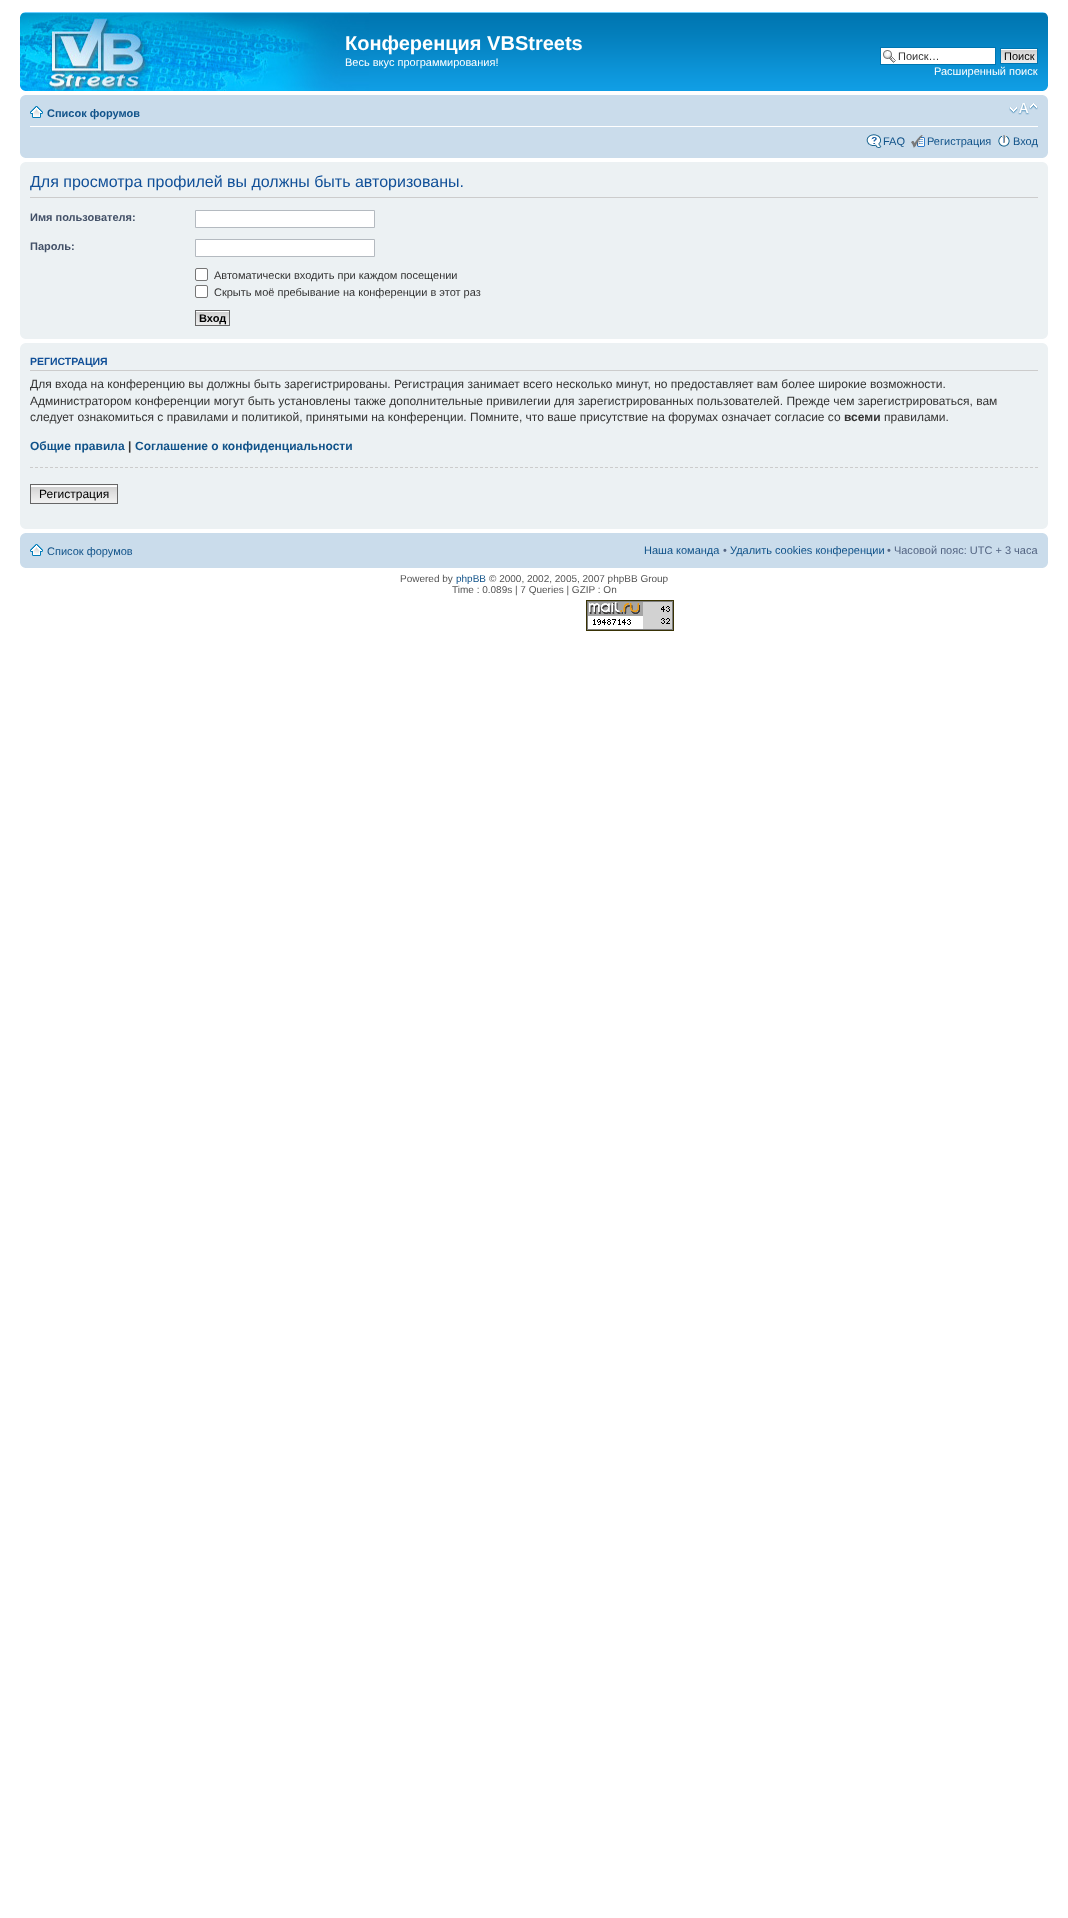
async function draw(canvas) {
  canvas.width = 1068;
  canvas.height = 1918;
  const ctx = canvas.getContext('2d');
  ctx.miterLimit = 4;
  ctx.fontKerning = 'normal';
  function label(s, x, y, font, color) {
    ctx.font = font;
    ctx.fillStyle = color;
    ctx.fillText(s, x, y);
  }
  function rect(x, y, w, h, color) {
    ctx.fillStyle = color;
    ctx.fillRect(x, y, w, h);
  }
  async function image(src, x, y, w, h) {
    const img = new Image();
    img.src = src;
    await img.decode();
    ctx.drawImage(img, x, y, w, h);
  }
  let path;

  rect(0, 0, 1068, 1918, '#fff');
  await image('assets/img1.png', 22, 12, 1026, 79);
  await image('assets/img2.png', 20, 13, 349, 78);
  await image('assets/img3.png', 20, 12, 5, 5);
  await image('assets/img4.png', 1043, 12, 5, 5);
  label('Конференция VBStreets', 345, 50, 'bold 20px Liberation Sans', '#fff');
  label('Весь вкус программирования!', 345, 66, '11px Liberation Sans', '#fff');
  rect(881, 48, 114, 16, '#fff');
  await image('assets/img5.png', 883, 50, 13, 13);
  ctx.strokeStyle = '#0075b0';
  ctx.strokeRect(880.5, 47.5, 115, 17);
  label('Поиск…', 898, 60, '11px Liberation Sans', '#333');
  await image('assets/img6.png', 1001, 49, 36, 14);
  ctx.strokeRect(1000.5, 48.5, 37, 15);
  label('Поиск', 1004, 60, '11px Liberation Sans', '#000');
  label('Расширенный поиск', 934, 75, '11px Liberation Sans', '#fff');
  await image('assets/img7.png', 20, 86, 5, 5);
  await image('assets/img8.png', 1043, 86, 5, 5);
  rect(20, 95, 1028, 63, '#cadceb');
  await image('assets/img9.png', 20, 95, 5, 5);
  await image('assets/img10.png', 1043, 95, 5, 5);
  rect(30, 126, 1008, 1, '#fff');
  await image('assets/img11.png', 30, 106, 13, 12);
  label('Список форумов', 47, 117, 'bold 11px Liberation Sans', '#105289');
  await image('assets/img12.png', 1009, 103, 29, 12);
  await image('assets/img13.png', 866, 134, 16, 14);
  label('FAQ', 883, 145, '11px Liberation Sans', '#105289');
  await image('assets/img14.png', 911, 135, 14, 13);
  label('Регистрация', 927, 145, '11px Liberation Sans', '#105289');
  await image('assets/img15.png', 998, 135, 12, 12);
  label('Вход', 1013, 145, '11px Liberation Sans', '#105289');
  await image('assets/img16.png', 20, 153, 5, 5);
  await image('assets/img17.png', 1043, 153, 5, 5);
  rect(20, 162, 1028, 177, '#ecf1f3');
  await image('assets/img18.png', 20, 162, 5, 5);
  await image('assets/img19.png', 1043, 162, 5, 5);
  rect(30, 197, 1008, 1, '#ccc');
  label('Для просмотра профилей вы должны быть авторизованы.', 30, 187, '16px Liberation Sans', '#115098');
  label('Имя пользователя:', 30, 221, 'bold 11px Liberation Sans', '#425067');
  ctx.fillStyle = '#fff';
  ctx.beginPath();
  ctx.rect(195.5, 210.5, 179, 17);
  ctx.fill();
  ctx.strokeStyle = '#b4bac0';
  ctx.stroke();
  label('Пароль:', 30, 250, 'bold 11px Liberation Sans', '#425067');
  ctx.fillStyle = '#fff';
  ctx.beginPath();
  ctx.rect(195.5, 239.5, 179, 17);
  ctx.fill();
  ctx.stroke();
  ctx.beginPath();
  ctx.roundRect(195.5, 268.5, 12, 12, 1.5);
  ctx.fill();
  ctx.strokeStyle = '#767676';
  ctx.stroke();
  label('Автоматически входить при каждом посещении', 214, 279, '11px Liberation Sans', '#333');
  ctx.fillStyle = '#fff';
  ctx.beginPath();
  ctx.roundRect(195.5, 285.5, 12, 12, 1.5);
  ctx.fill();
  ctx.stroke();
  label('Скрыть моё пребывание на конференции в этот раз', 214, 296, '11px Liberation Sans', '#333');
  await image('assets/img20.png', 196, 311, 33, 14);
  ctx.strokeStyle = '#666';
  ctx.strokeRect(195.5, 310.5, 34, 15);
  label('Вход', 199, 322, 'bold 11px Liberation Sans', '#000');
  await image('assets/img21.png', 20, 334, 5, 5);
  await image('assets/img22.png', 1043, 334, 5, 5);
  rect(20, 343, 1028, 186, '#ecf1f3');
  await image('assets/img18.png', 20, 343, 5, 5);
  await image('assets/img19.png', 1043, 343, 5, 5);
  rect(30, 370, 1008, 1, '#ccc');
  label('РЕГИСТРАЦИЯ', 30, 365, 'bold 10.5px Liberation Sans', '#115098');
  label('Для входа на конференцию вы должны быть зарегистрированы. Регистрация занимает всего несколько минут, но предоставляет вам более широкие возможности.', 30, 388, '12px Liberation Sans', '#333');
  label('Администратором конференции могут быть установлены также дополнительные привилегии для зарегистрированных пользователей. Прежде чем зарегистрироваться, вам', 30, 405, '12px Liberation Sans', '#333');
  label('следует ознакомиться с правилами и политикой, принятыми на конференции. Помните, что ваше присутствие на форумах означает согласие со', 30, 421, '12px Liberation Sans', '#333');
  label('всеми', 844, 421, 'bold 12px Liberation Sans', '#333');
  label('правилами.', 884, 421, '12px Liberation Sans', '#333');
  label('Общие правила', 30, 450, 'bold 12px Liberation Sans', '#105289');
  label('|', 128, 450, 'bold 12px Liberation Sans', '#333');
  label('Соглашение о конфиденциальности', 135, 450, 'bold 12px Liberation Sans', '#105289');
  path = new Path2D('M30 467.5H1038');
  ctx.strokeStyle = '#ccc';
  ctx.setLineDash([3, 2]);
  ctx.stroke(path);
  await image('assets/img23.png', 31, 486, 86, 17);
  rect(31, 485, 86, 1, '#fafafa');
  ctx.strokeStyle = '#666';
  ctx.setLineDash([]);
  ctx.strokeRect(30.5, 484.5, 87, 19);
  label('Регистрация', 39, 498, '12px Liberation Sans', '#000');
  await image('assets/img21.png', 20, 524, 5, 5);
  await image('assets/img22.png', 1043, 524, 5, 5);
  rect(20, 533, 1028, 35, '#cadceb');
  await image('assets/img9.png', 20, 533, 5, 5);
  await image('assets/img10.png', 1043, 533, 5, 5);
  await image('assets/img11.png', 30, 544, 13, 12);
  label('Список форумов', 47, 555, '11px Liberation Sans', '#105289');
  label('Наша команда', 644, 554, '11px Liberation Sans', '#105289');
  label('•', 723, 554, '11px Liberation Sans', '#536482');
  label('Удалить cookies конференции', 730, 554, '11px Liberation Sans', '#105289');
  label('• Часовой пояс: UTC + 3 часа', 887, 554, '11px Liberation Sans', '#536482');
  await image('assets/img16.png', 20, 563, 5, 5);
  await image('assets/img17.png', 1043, 563, 5, 5);
  label('Powered by', 400, 582, '10px Liberation Sans', '#555');
  label('phpBB', 456, 582, '10px Liberation Sans', '#105289');
  label('© 2000, 2002, 2005, 2007 phpBB Group', 489, 582, '10px Liberation Sans', '#555');
  label('Time : 0.089s | 7 Queries | GZIP : On', 452, 593, '10px Liberation Sans', '#555');
  await image('assets/img24.png', 586, 600, 88, 31);
}

draw(document.querySelector('canvas'));
